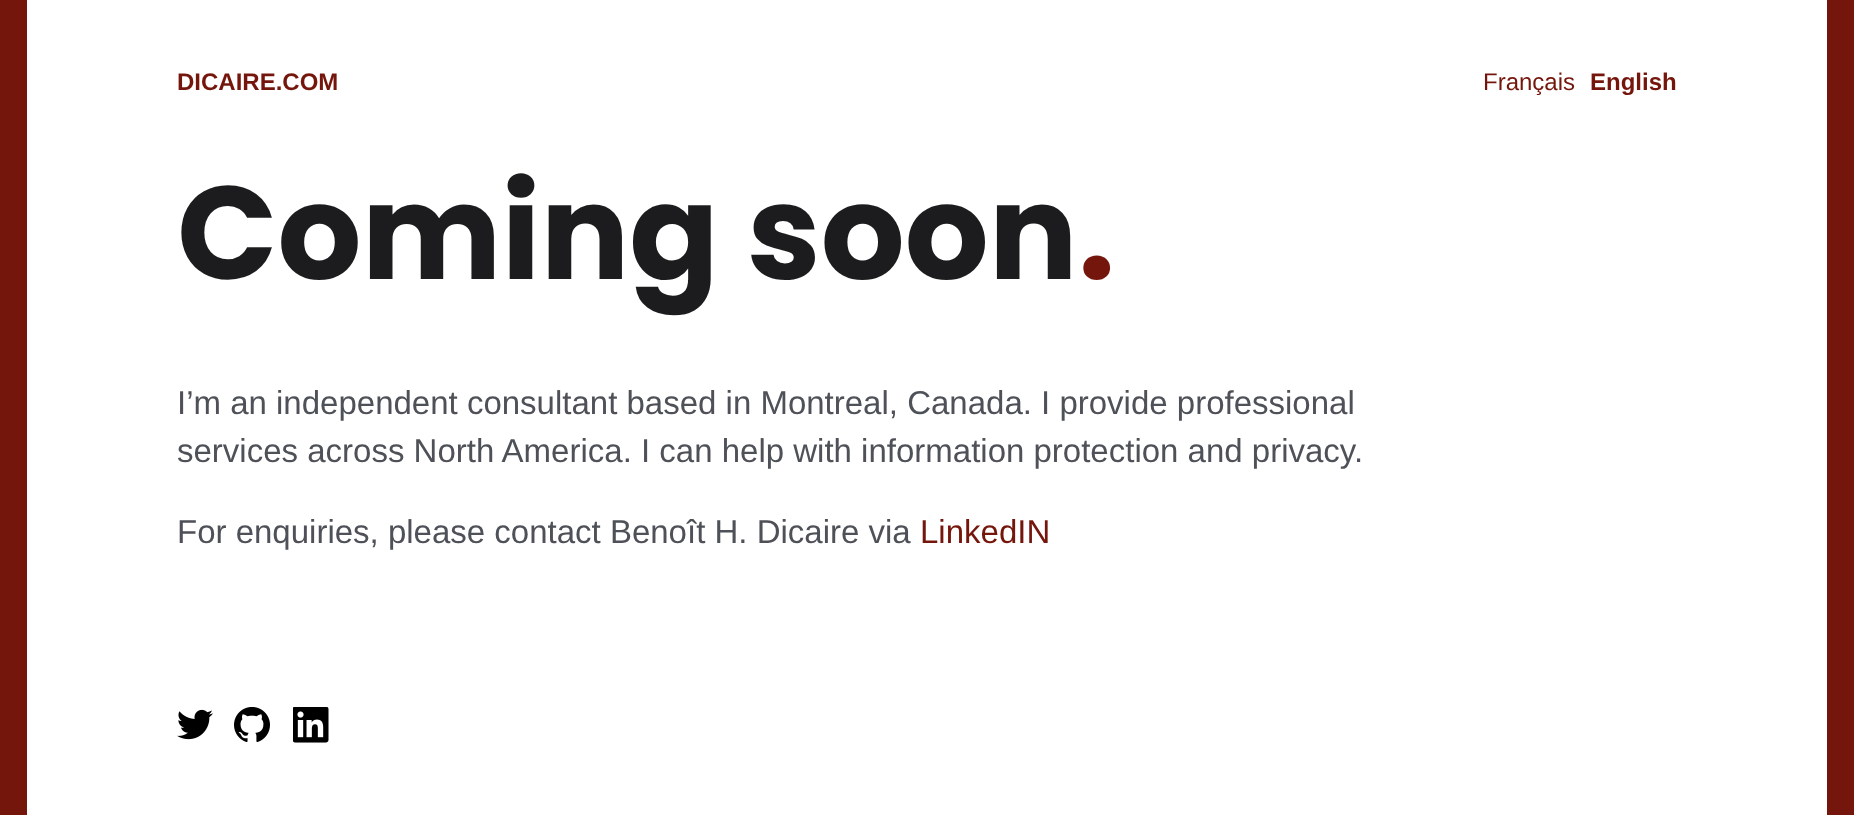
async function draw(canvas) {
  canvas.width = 1854;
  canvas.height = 815;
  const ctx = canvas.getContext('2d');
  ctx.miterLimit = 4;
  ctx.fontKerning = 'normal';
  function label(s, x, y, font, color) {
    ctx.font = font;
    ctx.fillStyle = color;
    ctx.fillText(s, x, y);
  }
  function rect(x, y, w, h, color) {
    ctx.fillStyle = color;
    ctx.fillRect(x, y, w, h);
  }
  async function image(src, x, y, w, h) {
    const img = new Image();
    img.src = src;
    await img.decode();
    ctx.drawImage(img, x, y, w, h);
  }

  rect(0, 0, 1854, 815, '#fff');
  ctx.strokeStyle = '#75160c';
  ctx.lineWidth = 27;
  ctx.strokeRect(13.5, -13.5, 1827, 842);
  label('DICAIRE.COM', 177, 90, 'bold 24px Liberation Sans', '#75160c');
  label('Français', 1483, 90, '24px Liberation Sans', '#75160c');
  label('English', 1590, 90, 'bold 24px Liberation Sans', '#75160c');
  label('Coming soon', 177, 279, 'bold 132px Poppins', '#1c1b1d');
  label('.', 1078, 279, 'bold 132px Poppins', '#75160c');
  label('I’m an independent consultant based in Montreal, Canada. I provide professional', 177, 414, '33px Liberation Sans', '#4e5157');
  label('services across North America. I can help with information protection and privacy.', 177, 462, '33px Liberation Sans', '#4e5157');
  label('For enquiries, please contact Benoît H. Dicaire via', 177, 543, '33px Liberation Sans', '#4e5157');
  label('LinkedIN', 920, 543, '33px Liberation Sans', '#75160c');
  await image('assets/img1.png', 177, 709, 36, 31);
  await image('assets/img2.png', 234, 707, 36, 35);
  await image('assets/img3.png', 293, 707, 36, 36);
}

draw(document.querySelector('canvas'));
